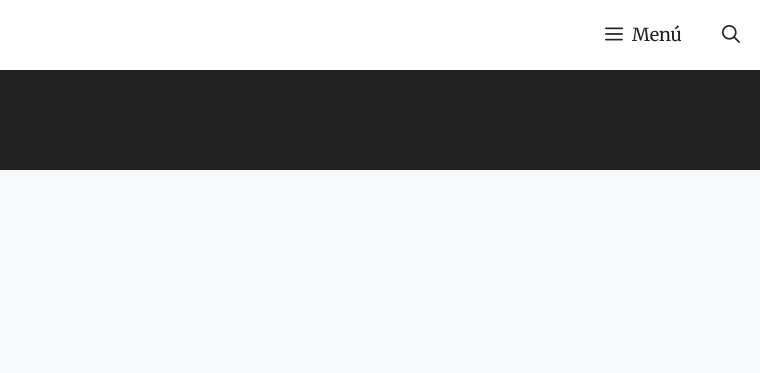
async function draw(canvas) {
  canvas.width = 760;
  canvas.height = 373;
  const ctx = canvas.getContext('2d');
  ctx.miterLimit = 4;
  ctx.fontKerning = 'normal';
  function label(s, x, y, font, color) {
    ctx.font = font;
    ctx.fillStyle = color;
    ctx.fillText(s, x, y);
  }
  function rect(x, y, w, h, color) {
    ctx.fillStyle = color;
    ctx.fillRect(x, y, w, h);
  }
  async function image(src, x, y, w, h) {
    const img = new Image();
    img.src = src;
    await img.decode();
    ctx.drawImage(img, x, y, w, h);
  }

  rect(0, 0, 760, 373, '#f7f8f9');
  rect(0, 0, 760, 70, '#fff');
  await image('assets/img1.png', 605, 27, 18, 14);
  label('Menú', 632, 41, '18px Merriweather', '#222');
  await image('assets/img2.png', 722, 25, 18, 18);
  rect(0, 70, 760, 100, '#212121');
}

draw(document.querySelector('canvas'));
